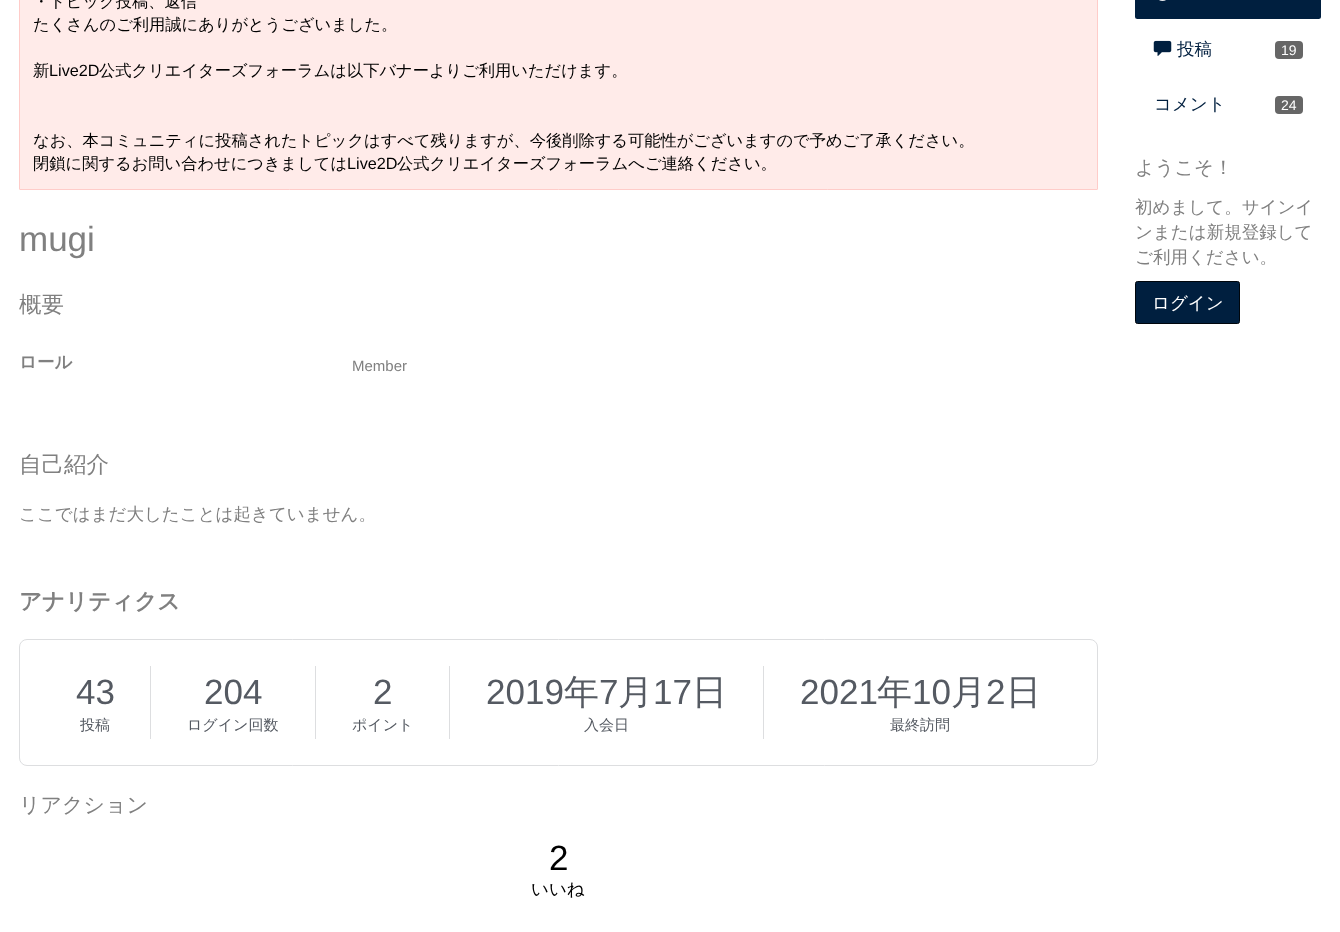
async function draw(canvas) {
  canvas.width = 1340;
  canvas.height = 932;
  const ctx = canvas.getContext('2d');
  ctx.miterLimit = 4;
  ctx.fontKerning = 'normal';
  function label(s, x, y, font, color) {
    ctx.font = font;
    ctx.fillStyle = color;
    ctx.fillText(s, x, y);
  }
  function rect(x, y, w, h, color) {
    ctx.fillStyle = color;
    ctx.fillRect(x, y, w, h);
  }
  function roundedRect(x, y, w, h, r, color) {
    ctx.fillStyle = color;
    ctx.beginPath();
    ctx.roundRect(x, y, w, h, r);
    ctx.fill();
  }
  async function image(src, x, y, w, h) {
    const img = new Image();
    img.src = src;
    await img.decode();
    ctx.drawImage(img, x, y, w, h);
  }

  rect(0, 0, 1340, 932, '#fff');
  ctx.fillStyle = '#ffebe9';
  ctx.beginPath();
  ctx.roundRect(19.5, -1.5, 1078, 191, 0.5);
  ctx.fill();
  ctx.strokeStyle = '#ffccc9';
  ctx.stroke();
  label('・トピック投稿、返信', 33, 7, '500 16.25px WenQuanYi Zen Hei', '#000');
  label('たくさんのご利用誠にありがとうございました。', 33, 30, '500 16.25px WenQuanYi Zen Hei', '#000');
  label('新', 33, 76, '500 16.25px WenQuanYi Zen Hei', '#000');
  label('Live2D', 49, 76, '16.25px Liberation Sans', '#000');
  label('公式クリエイターズフォーラムは以下バナーよりご利用いただけます。', 99, 76, '500 16.25px WenQuanYi Zen Hei', '#000');
  label('なお、本コミュニティに投稿されたトピックはすべて残りますが、今後削除する可能性がございますので予めご了承ください。', 33, 146, '500 16.25px WenQuanYi Zen Hei', '#000');
  label('閉鎖に関するお問い合わせにつきましては', 33, 169, '500 16.25px WenQuanYi Zen Hei', '#000');
  label('Live2D', 347, 169, '16.25px Liberation Sans', '#000');
  label('公式クリエイターズフォーラムへご連絡ください。', 397, 169, '500 16.25px WenQuanYi Zen Hei', '#000');
  label('mugi', 19, 251, '35px Liberation Sans', '#808080');
  label('概要', 19, 312, '500 22.5px WenQuanYi Zen Hei', '#808080');
  label('ロール', 19, 368, 'bold 17.5px WenQuanYi Zen Hei', '#808080');
  label('Member', 352, 371, '15px Liberation Sans', '#808080');
  label('自己紹介', 19, 472, '500 22.5px WenQuanYi Zen Hei', '#808080');
  label('ここではまだ大したことは起きていません。', 19, 520, '500 17.5px WenQuanYi Zen Hei', '#808080');
  label('アナリティクス', 19, 609, 'bold 22.5px WenQuanYi Zen Hei', '#808080');
  ctx.beginPath();
  ctx.roundRect(19.5, 639.5, 1078, 126, 7.5);
  ctx.strokeStyle = '#dddee0';
  ctx.stroke();
  rect(150, 666, 1, 73, '#dddee0');
  label('43', 76, 704, '35px Liberation Sans', '#555a62');
  label('投稿', 80, 730, '500 15px WenQuanYi Zen Hei', '#555a62');
  rect(315, 666, 1, 73, '#dddee0');
  label('204', 204, 704, '35px Liberation Sans', '#555a62');
  label('ログイン回数', 187, 730, '500 15px WenQuanYi Zen Hei', '#555a62');
  rect(449, 666, 1, 73, '#dddee0');
  label('2', 373, 704, '35px Liberation Sans', '#555a62');
  label('ポイント', 352, 730, '500 15px WenQuanYi Zen Hei', '#555a62');
  rect(763, 666, 1, 73, '#dddee0');
  label('2019', 486, 704, '35px Liberation Sans', '#555a62');
  label('年', 564, 704, '500 35px WenQuanYi Zen Hei', '#555a62');
  label('7', 599, 704, '35px Liberation Sans', '#555a62');
  label('月', 618, 704, '500 35px WenQuanYi Zen Hei', '#555a62');
  label('17', 653, 704, '35px Liberation Sans', '#555a62');
  label('日', 692, 704, '500 35px WenQuanYi Zen Hei', '#555a62');
  label('入会日', 584, 730, '500 15px WenQuanYi Zen Hei', '#555a62');
  label('2021', 800, 704, '35px Liberation Sans', '#555a62');
  label('年', 877, 704, '500 35px WenQuanYi Zen Hei', '#555a62');
  label('10', 912, 704, '35px Liberation Sans', '#555a62');
  label('月', 951, 704, '500 35px WenQuanYi Zen Hei', '#555a62');
  label('2', 986, 704, '35px Liberation Sans', '#555a62');
  label('日', 1006, 704, '500 35px WenQuanYi Zen Hei', '#555a62');
  label('最終訪問', 890, 730, '500 15px WenQuanYi Zen Hei', '#555a62');
  label('リアクション', 19, 812, '500 21px WenQuanYi Zen Hei', '#808080');
  label('2', 549, 870, '35px Liberation Sans', '#000');
  label('いいね', 531, 895, '500 17.5px WenQuanYi Zen Hei', '#000');
  roundedRect(1135, -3, 186, 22, 2.5, '#001f3f');
  await image('assets/img1.png', 1159, 0, 7, 1);
  await image('assets/img2.png', 1153, 40, 19, 16);
  label('投稿', 1177, 55, '500 17.5px WenQuanYi Zen Hei', '#001f3f');
  roundedRect(1275, 41, 28, 18, 4, '#666');
  label('19', 1281, 55, '14px Liberation Sans', '#fff');
  label('コメント', 1154, 110, '500 17.5px WenQuanYi Zen Hei', '#001f3f');
  roundedRect(1275, 96, 28, 18, 4, '#666');
  label('24', 1281, 110, '14px Liberation Sans', '#fff');
  label('ようこそ！', 1135, 174, '500 19.25px WenQuanYi Zen Hei', '#808080');
  label('初めまして。サインイ', 1135, 213, '500 17.5px WenQuanYi Zen Hei', '#808080');
  label('ンまたは新規登録して', 1135, 238, '500 17.5px WenQuanYi Zen Hei', '#808080');
  label('ご利用ください。', 1135, 263, '500 17.5px WenQuanYi Zen Hei', '#808080');
  ctx.fillStyle = '#001f3f';
  ctx.beginPath();
  ctx.roundRect(1135.5, 281.5, 104, 42, 2);
  ctx.fill();
  ctx.strokeStyle = '#00060c';
  ctx.stroke();
  label('ログイン', 1152, 309, '500 17.5px WenQuanYi Zen Hei', '#fff');
}

draw(document.querySelector('canvas'));
